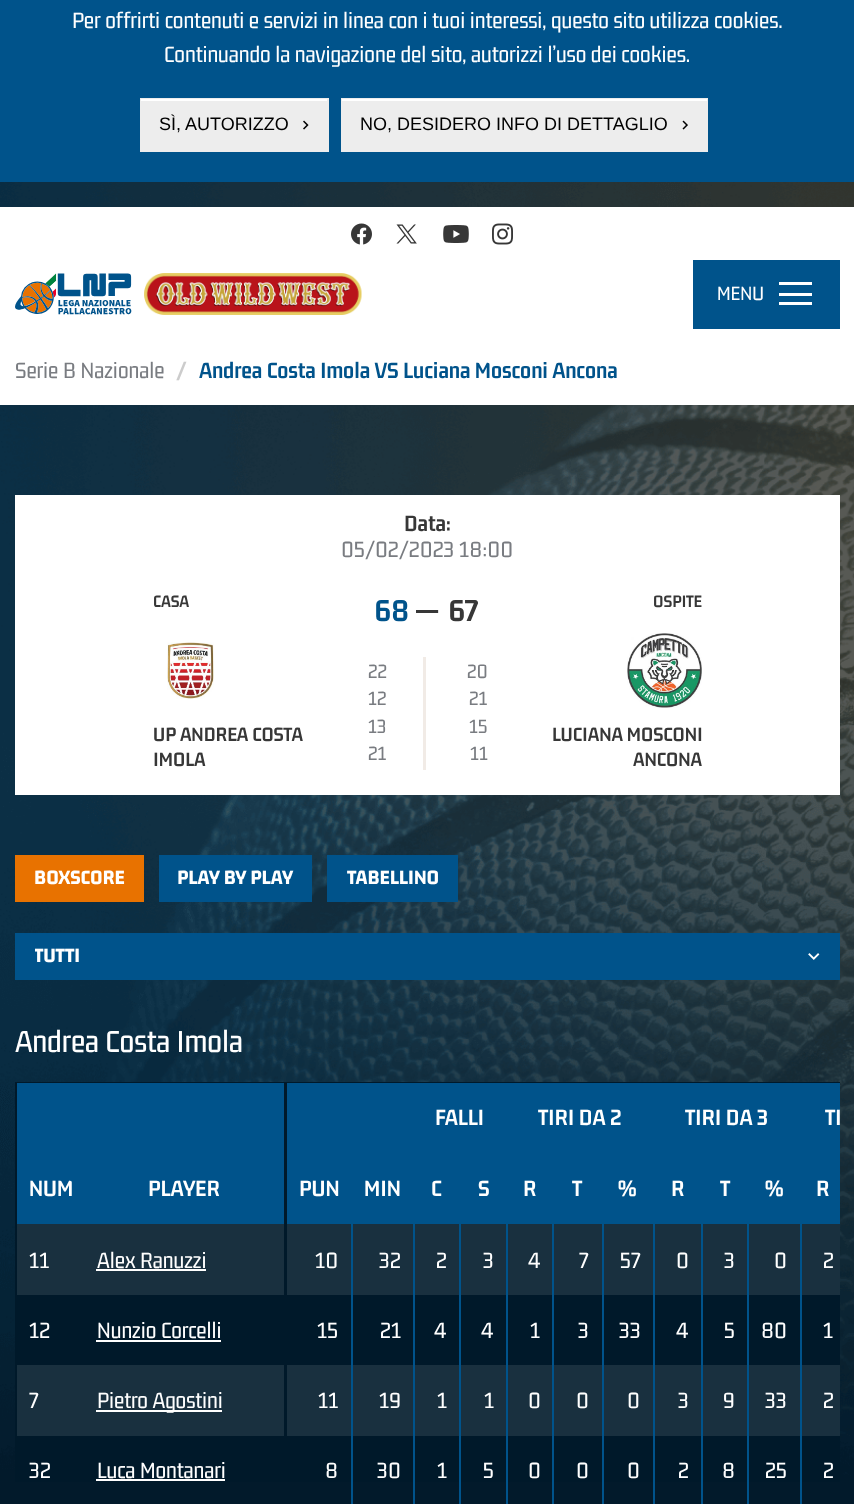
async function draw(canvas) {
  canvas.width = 854;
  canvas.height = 1504;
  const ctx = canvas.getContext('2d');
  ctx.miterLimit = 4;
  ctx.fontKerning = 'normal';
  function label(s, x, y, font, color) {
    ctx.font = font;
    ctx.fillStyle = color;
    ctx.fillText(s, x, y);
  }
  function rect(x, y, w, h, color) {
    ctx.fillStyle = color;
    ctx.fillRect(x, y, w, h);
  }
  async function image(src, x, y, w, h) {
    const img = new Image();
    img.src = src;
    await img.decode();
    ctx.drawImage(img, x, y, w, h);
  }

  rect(0, 0, 854, 1504, '#fff');
  await image('assets/img1.png', 0, 182, 854, 1322);
  rect(0, 0, 854, 182, '#00538b');
  label('Per offrirti contenuti e servizi in linea con i tuoi interessi, questo sito utilizza cookies.', 72, 28, '24px Gemunu Libre', '#fff');
  label('Continuando la navigazione del sito, autorizzi l’uso dei cookies.', 164, 62, '24px Gemunu Libre', '#fff');
  rect(140, 98, 189, 54, '#ededed');
  rect(141, 99, 186, 2, '#fff');
  label('SÌ, AUTORIZZO', 159, 130, '18px Liberation Sans', '#000');
  await image('assets/img2.png', 303, 120, 6, 10);
  rect(341, 98, 367, 54, '#ededed');
  rect(342, 99, 365, 2, '#fff');
  label('NO, DESIDERO INFO DI DETTAGLIO', 360, 130, '18px Liberation Sans', '#000');
  await image('assets/img3.png', 682, 120, 6, 10);
  rect(0, 207, 854, 129, '#fff');
  await image('assets/img4.png', 351, 223, 21, 22);
  await image('assets/img5.png', 396, 224, 21, 20);
  await image('assets/img6.png', 443, 225, 26, 18);
  await image('assets/img7.png', 492, 223, 21, 22);
  await image('assets/img8.png', 15, 273, 117, 42);
  await image('assets/img9.png', 144, 273, 218, 42);
  rect(693, 260, 147, 69, '#00538b');
  label('MENU', 717, 300, '21px Gemunu Libre', '#fff');
  rect(779, 282, 33, 3, '#fff');
  rect(779, 293, 33, 3, '#fff');
  rect(779, 302, 33, 3, '#fff');
  rect(0, 336, 854, 69, '#fff');
  label('Serie B Nazionale', 15, 378, '24px Gemunu Libre', '#797c81');
  label('/', 176, 378, 'bold 24px Gemunu Libre', '#ccc');
  label('Andrea Costa Imola VS Luciana Mosconi Ancona', 199, 378, 'bold 24px Gemunu Libre', '#00538b');
  rect(15, 495, 825, 300, '#fff');
  label('Data:', 404, 531, 'bold 24px Gemunu Libre', '#373737');
  label('05/02/2023 18:00', 341, 557, '24px Gemunu Libre', '#797c81');
  label('CASA', 153, 607, 'bold 18px Gemunu Libre', '#373737');
  await image('assets/img10.png', 167, 642, 47, 57);
  label('UP ANDREA COSTA', 153, 741, 'bold 21px Gemunu Libre', '#373737');
  label('IMOLA', 153, 766, 'bold 21px Gemunu Libre', '#373737');
  label('68', 374, 621, 'bold 33px Gemunu Libre', '#00538b');
  label('—', 416, 621, 'bold 33px Gemunu Libre', '#373737');
  label('67', 448, 621, 'bold 33px Gemunu Libre', '#373737');
  label('22', 368, 678, '21px Gemunu Libre', '#797c81');
  label('20', 467, 678, '21px Gemunu Libre', '#797c81');
  label('12', 368, 705, '21px Gemunu Libre', '#797c81');
  label('21', 469, 705, '21px Gemunu Libre', '#797c81');
  label('13', 368, 733, '21px Gemunu Libre', '#797c81');
  label('15', 469, 733, '21px Gemunu Libre', '#797c81');
  rect(423, 657, 3, 113, '#f1ebe6');
  label('21', 368, 760, '21px Gemunu Libre', '#797c81');
  label('11', 470, 760, '21px Gemunu Libre', '#797c81');
  label('OSPITE', 653, 607, 'bold 18px Gemunu Libre', '#373737');
  await image('assets/img11.png', 627, 633, 75, 75);
  label('LUCIANA MOSCONI', 552, 741, 'bold 21px Gemunu Libre', '#373737');
  label('ANCONA', 633, 766, 'bold 21px Gemunu Libre', '#373737');
  rect(15, 855, 129, 47, '#e87200');
  label('BOXSCORE', 34, 884, '800 21px Gemunu Libre', '#fff');
  rect(159, 855, 153, 47, '#00538b');
  label('PLAY BY PLAY', 177, 884, '800 21px Gemunu Libre', '#fff');
  rect(327, 855, 131, 47, '#00538b');
  label('TABELLINO', 347, 884, '800 21px Gemunu Libre', '#fff');
  rect(15, 933, 825, 47, '#00538b');
  await image('assets/img12.png', 808, 953, 12, 7);
  ctx.save();
  ctx.beginPath();
  ctx.rect(35, 933, 760, 47);
  ctx.clip();
  label('TUTTI', 34, 962, '800 21px Gemunu Libre', '#fff');
  ctx.restore();
  label('Andrea Costa Imola', 15, 1052, '500 33px Gemunu Libre', '#fff');
  rect(15, 1082, 825, 400, '#00192a');
  rect(17, 1083, 267, 141, '#00538b');
  label('NUM', 29, 1196, 'bold 24px Gemunu Libre', '#fff');
  label('PLAYER', 148, 1196, 'bold 24px Gemunu Libre', '#fff');
  rect(17, 1224, 267, 71, '#19303f');
  label('11', 29, 1268, '24px Gemunu Libre', '#fff');
  label('Alex Ranuzzi', 97, 1268, '24px Gemunu Libre', '#fff');
  rect(96, 1269, 110, 2, '#fff');
  label('12', 29, 1338, '24px Gemunu Libre', '#fff');
  label('Nunzio Corcelli', 97, 1338, '24px Gemunu Libre', '#fff');
  rect(96, 1340, 125, 2, '#fff');
  rect(17, 1365, 267, 71, '#19303f');
  label('7', 29, 1408, '24px Gemunu Libre', '#fff');
  rect(96, 1410, 126, 2, '#fff');
  label('Pietro Agostini', 97, 1408, '24px Gemunu Libre', '#fff');
  label('32', 29, 1478, '24px Gemunu Libre', '#fff');
  label('Luca Montanari', 97, 1478, '24px Gemunu Libre', '#fff');
  rect(96, 1479, 129, 2, '#fff');
  rect(287, 1083, 553, 141, '#00538b');
  label('FALLI', 435, 1125, 'bold 24px Gemunu Libre', '#fff');
  label('TIRI DA 2', 538, 1125, 'bold 24px Gemunu Libre', '#fff');
  label('TIRI DA 3', 685, 1125, 'bold 24px Gemunu Libre', '#fff');
  ctx.save();
  ctx.beginPath();
  ctx.rect(285, 1083, 555, 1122);
  ctx.clip();
  label('TI', 825, 1125, 'bold 24px Gemunu Libre', '#fff');
  ctx.restore();
  label('PUN', 299, 1196, 'bold 24px Gemunu Libre', '#fff');
  label('MIN', 364, 1196, 'bold 24px Gemunu Libre', '#fff');
  label('C', 431, 1196, 'bold 24px Gemunu Libre', '#fff');
  label('S', 478, 1196, 'bold 24px Gemunu Libre', '#fff');
  label('R', 523, 1196, 'bold 24px Gemunu Libre', '#fff');
  label('T', 572, 1196, 'bold 24px Gemunu Libre', '#fff');
  label('%', 618, 1196, 'bold 24px Gemunu Libre', '#fff');
  label('R', 671, 1196, 'bold 24px Gemunu Libre', '#fff');
  label('T', 720, 1196, 'bold 24px Gemunu Libre', '#fff');
  label('%', 765, 1196, 'bold 24px Gemunu Libre', '#fff');
  label('R', 816, 1196, 'bold 24px Gemunu Libre', '#fff');
  rect(287, 1224, 553, 71, '#19303f');
  label('10', 315, 1268, '24px Gemunu Libre', '#fff');
  label('32', 379, 1268, '24px Gemunu Libre', '#fff');
  label('2', 436, 1268, '24px Gemunu Libre', '#fff');
  label('3', 483, 1268, '24px Gemunu Libre', '#fff');
  label('4', 528, 1268, '24px Gemunu Libre', '#fff');
  label('7', 579, 1268, '24px Gemunu Libre', '#fff');
  label('57', 620, 1268, '24px Gemunu Libre', '#fff');
  label('0', 676, 1268, '24px Gemunu Libre', '#fff');
  label('3', 724, 1268, '24px Gemunu Libre', '#fff');
  label('0', 774, 1268, '24px Gemunu Libre', '#fff');
  label('2', 823, 1268, '24px Gemunu Libre', '#fff');
  label('15', 317, 1338, '24px Gemunu Libre', '#fff');
  label('21', 380, 1338, '24px Gemunu Libre', '#fff');
  label('4', 434, 1338, '24px Gemunu Libre', '#fff');
  label('4', 481, 1338, '24px Gemunu Libre', '#fff');
  label('1', 530, 1338, '24px Gemunu Libre', '#fff');
  label('3', 578, 1338, '24px Gemunu Libre', '#fff');
  label('33', 619, 1338, '24px Gemunu Libre', '#fff');
  label('4', 676, 1338, '24px Gemunu Libre', '#fff');
  label('5', 724, 1338, '24px Gemunu Libre', '#fff');
  label('80', 761, 1338, '24px Gemunu Libre', '#fff');
  label('1', 823, 1338, '24px Gemunu Libre', '#fff');
  rect(287, 1365, 553, 71, '#19303f');
  label('11', 318, 1408, '24px Gemunu Libre', '#fff');
  label('19', 379, 1408, '24px Gemunu Libre', '#fff');
  label('1', 437, 1408, '24px Gemunu Libre', '#fff');
  label('1', 484, 1408, '24px Gemunu Libre', '#fff');
  label('0', 528, 1408, '24px Gemunu Libre', '#fff');
  label('0', 576, 1408, '24px Gemunu Libre', '#fff');
  label('0', 627, 1408, '24px Gemunu Libre', '#fff');
  label('3', 678, 1408, '24px Gemunu Libre', '#fff');
  label('9', 723, 1408, '24px Gemunu Libre', '#fff');
  label('33', 765, 1408, '24px Gemunu Libre', '#fff');
  label('2', 823, 1408, '24px Gemunu Libre', '#fff');
  rect(351, 1224, 2, 280, '#00538b');
  label('8', 325, 1478, '24px Gemunu Libre', '#fff');
  rect(413, 1224, 2, 280, '#00538b');
  label('30', 377, 1478, '24px Gemunu Libre', '#fff');
  rect(459, 1224, 2, 280, '#00538b');
  label('1', 437, 1478, '24px Gemunu Libre', '#fff');
  rect(506, 1224, 2, 280, '#00538b');
  label('5', 483, 1478, '24px Gemunu Libre', '#fff');
  rect(552, 1224, 2, 280, '#00538b');
  label('0', 528, 1478, '24px Gemunu Libre', '#fff');
  rect(602, 1224, 2, 280, '#00538b');
  label('0', 576, 1478, '24px Gemunu Libre', '#fff');
  rect(653, 1224, 2, 280, '#00538b');
  label('0', 627, 1478, '24px Gemunu Libre', '#fff');
  rect(701, 1224, 2, 280, '#00538b');
  label('2', 678, 1478, '24px Gemunu Libre', '#fff');
  rect(747, 1224, 2, 280, '#00538b');
  label('8', 722, 1478, '24px Gemunu Libre', '#fff');
  rect(800, 1224, 2, 280, '#00538b');
  label('25', 765, 1478, '24px Gemunu Libre', '#fff');
  label('2', 823, 1478, '24px Gemunu Libre', '#fff');
}

draw(document.querySelector('canvas'));
